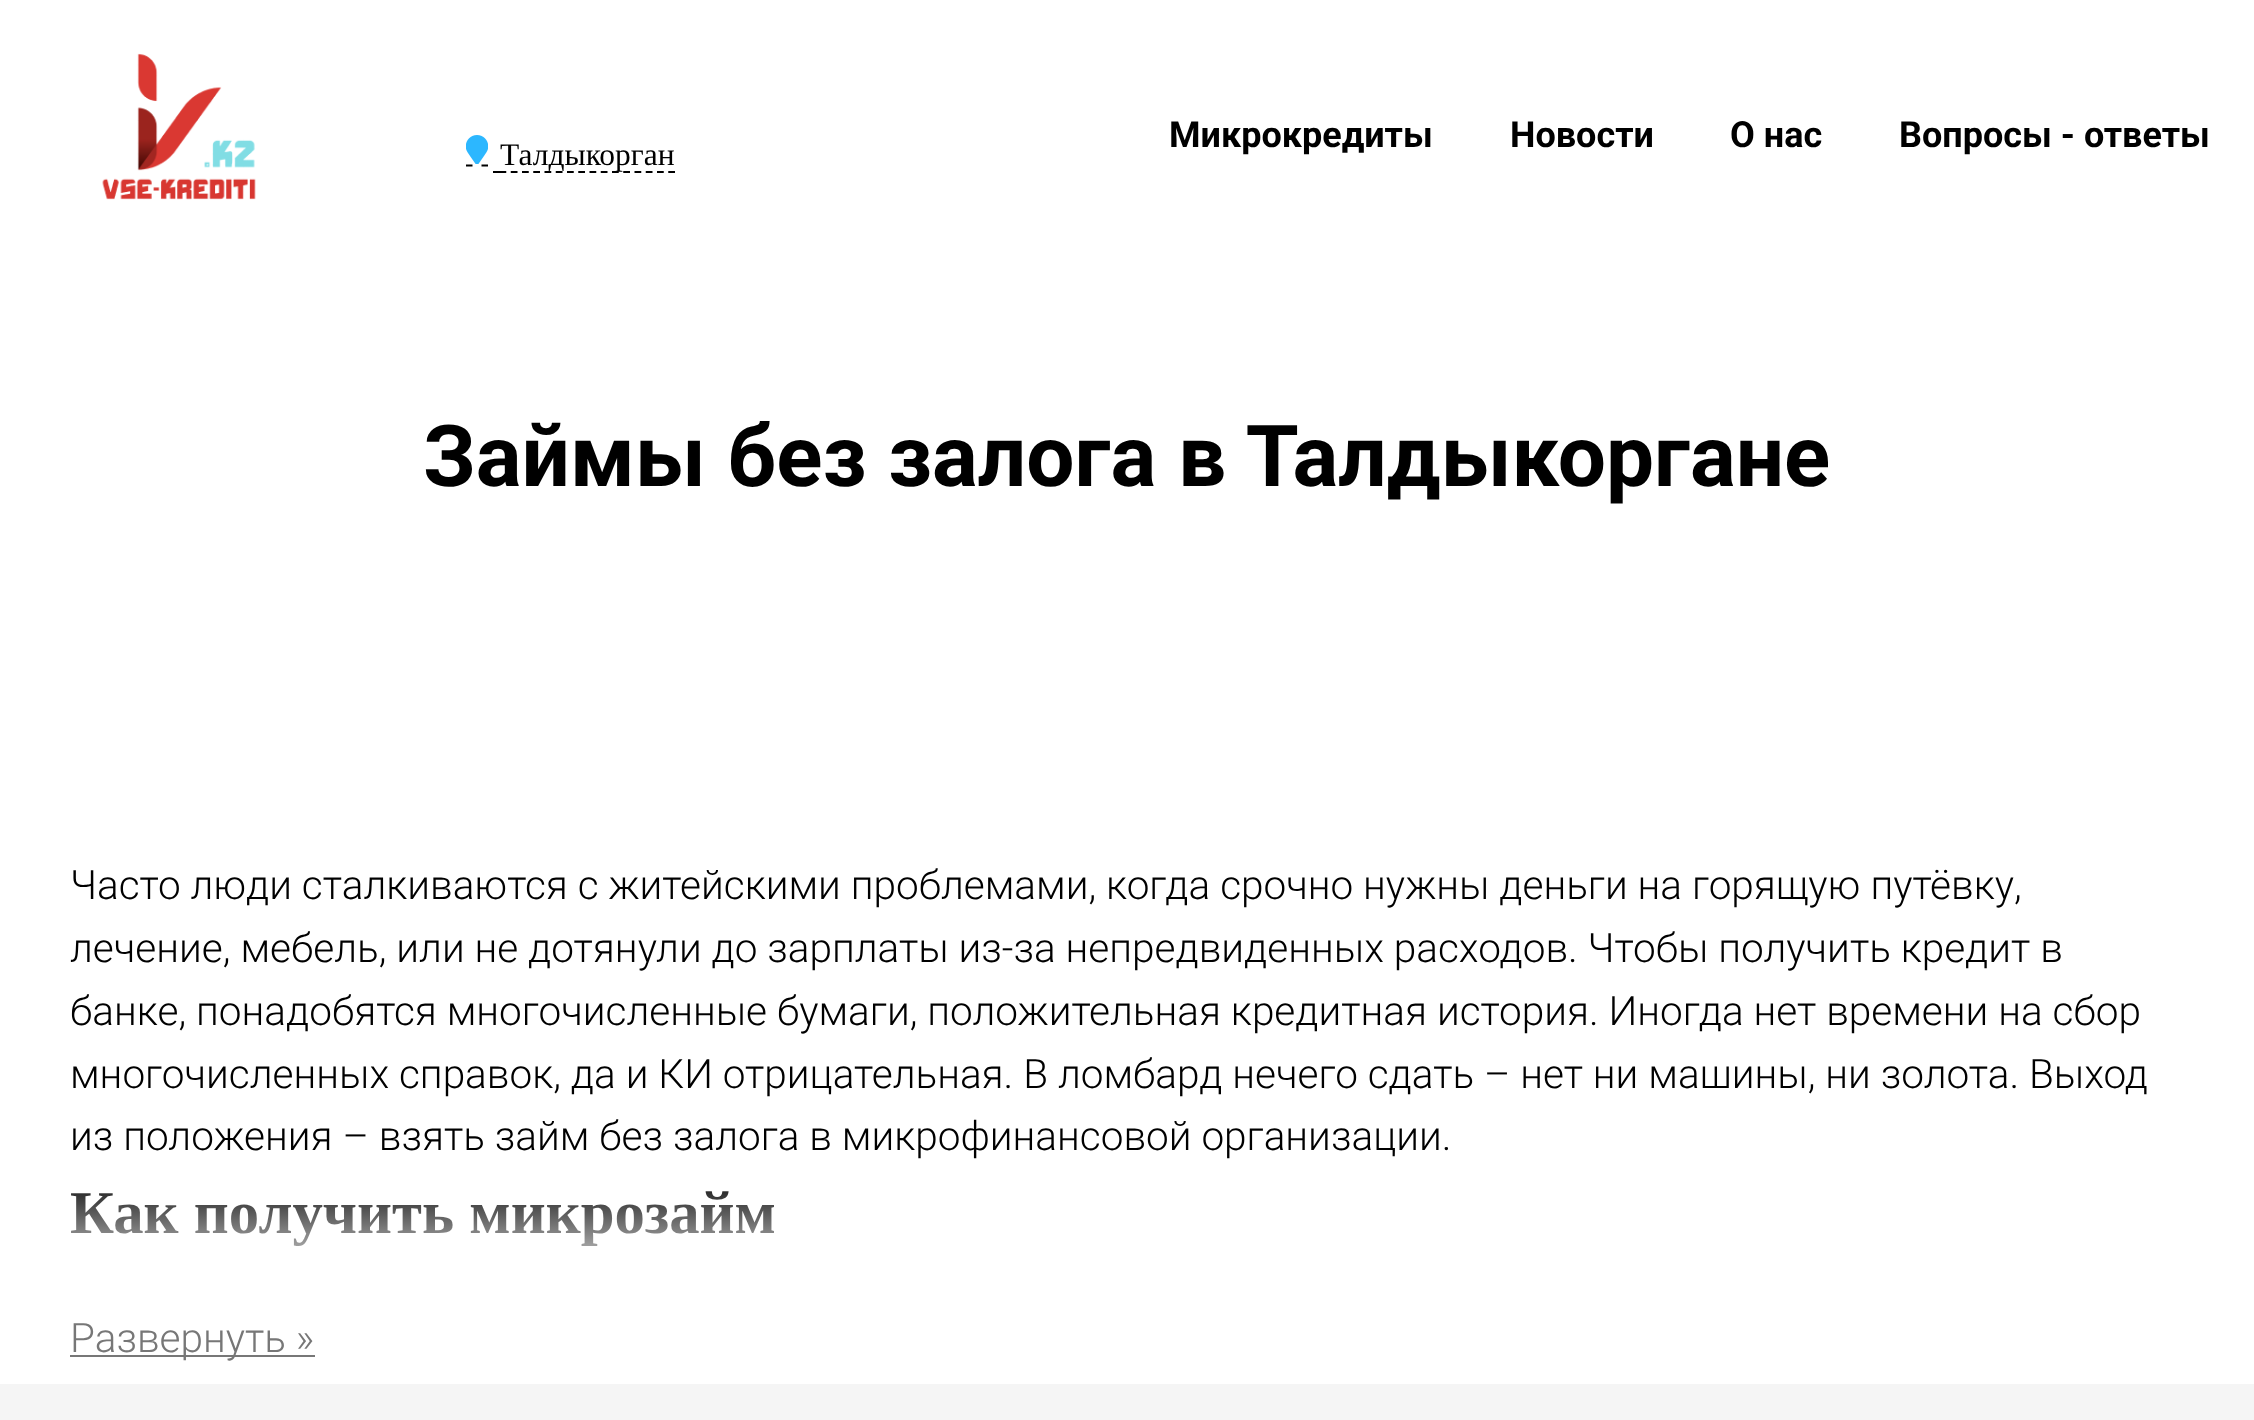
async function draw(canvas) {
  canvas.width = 2254;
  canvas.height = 1420;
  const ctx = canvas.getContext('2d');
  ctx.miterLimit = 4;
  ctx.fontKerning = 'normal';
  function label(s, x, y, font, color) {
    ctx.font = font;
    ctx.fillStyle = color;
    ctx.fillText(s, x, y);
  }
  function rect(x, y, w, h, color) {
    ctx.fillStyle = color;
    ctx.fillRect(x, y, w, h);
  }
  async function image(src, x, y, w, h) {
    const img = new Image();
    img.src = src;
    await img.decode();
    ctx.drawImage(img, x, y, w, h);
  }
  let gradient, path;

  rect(0, 0, 2254, 1420, '#fff');
  await image('assets/img1.png', 102, 53, 154, 147);
  label('Микрокредиты', 1169, 147, 'bold 36px Roboto', '#000');
  label('Новости', 1510, 147, 'bold 36px Roboto', '#000');
  label('О нас', 1730, 147, 'bold 36px Roboto', '#000');
  label('Вопросы - ответы', 1899, 147, 'bold 36px Roboto', '#000');
  await image('assets/img2.png', 466, 135, 22, 29);
  rect(493, 171, 7, 2, '#000');
  path = new Path2D('M499.5 172H675');
  ctx.strokeStyle = '#000';
  ctx.lineWidth = 2.2;
  ctx.setLineDash([6.75, 4.5]);
  ctx.stroke(path);
  label('Талдыкорган', 500, 165, '31.5px Liberation Serif', '#000');
  path = new Path2D('M466 165.5H472.5M481.5 165.5H488');
  ctx.setLineDash([]);
  ctx.stroke(path);
  ctx.wordSpacing = '0.5px';
  label('Займы без залога в Талдыкоргане', 423, 486, 'bold 85.5px Roboto', '#000');
  ctx.wordSpacing = '0px';
  label('Часто люди сталкиваются с житейскими проблемами, когда срочно нужны деньги на горящую путёвку,', 70, 899, '300 40.5px Roboto', '#000');
  label('лечение, мебель, или не дотянули до зарплаты из-за непредвиденных расходов. Чтобы получить кредит в', 70, 962, '300 40.5px Roboto', '#000');
  label('банке, понадобятся многочисленные бумаги, положительная кредитная история. Иногда нет времени на сбор', 70, 1025, '300 40.5px Roboto', '#000');
  label('многочисленных справок, да и КИ отрицательная. В ломбард нечего сдать – нет ни машины, ни золота. Выход', 70, 1088, '300 40.5px Roboto', '#000');
  label('из положения – взять займ без залога в микрофинансовой организации.', 70, 1150, '300 40.5px Roboto', '#000');
  label('Как получить микрозайм', 70, 1233, 'bold 60.75px Liberation Serif', '#000');
  gradient = ctx.createLinearGradient(1127, 1170, 1127, 1305);
  gradient.addColorStop(0, '#ffffff00');
  gradient.addColorStop(0.9, '#fff');
  ctx.fillStyle = gradient;
  ctx.fillRect(70, 1191, 704, 56);
  rect(70, 1355, 245, 2, '#777');
  label('Развернуть »', 70, 1352, '300 40.5px Roboto', '#777');
  rect(0, 1384, 2254, 36, '#f5f5f5');
}

draw(document.querySelector('canvas'));
